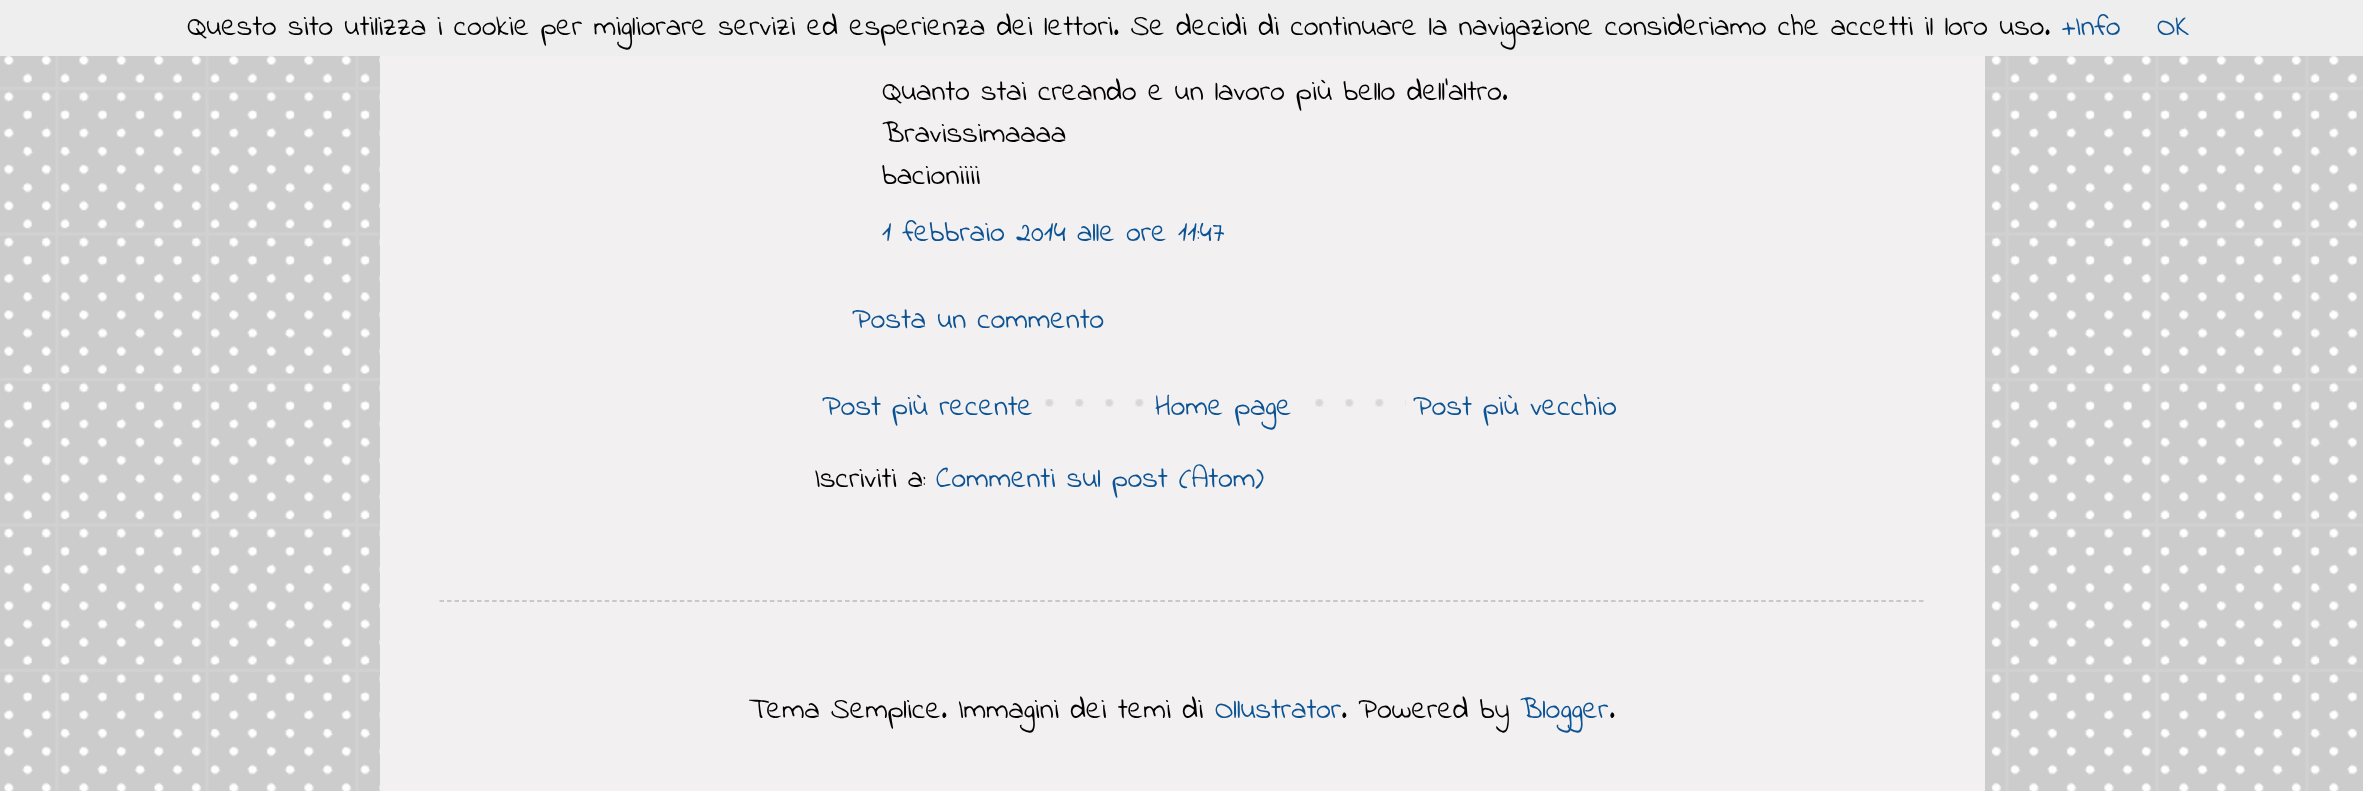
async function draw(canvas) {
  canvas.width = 2363;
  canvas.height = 791;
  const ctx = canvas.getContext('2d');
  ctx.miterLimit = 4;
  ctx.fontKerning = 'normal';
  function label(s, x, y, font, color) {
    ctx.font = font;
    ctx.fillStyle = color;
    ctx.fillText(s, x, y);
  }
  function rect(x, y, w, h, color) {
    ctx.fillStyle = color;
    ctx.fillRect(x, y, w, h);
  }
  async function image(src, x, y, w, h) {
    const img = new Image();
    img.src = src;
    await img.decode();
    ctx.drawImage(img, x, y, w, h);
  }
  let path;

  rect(0, 0, 2363, 791, '#fff');
  await image('assets/img1.png', 0, 56, 2363, 735);
  rect(0, 0, 2363, 56, '#eee');
  label('Questo sito utilizza i cookie per migliorare servizi ed esperienza dei lettori. Se decidi di continuare la navigazione consideriamo che accetti il loro uso.', 187, 35, '30px Indie Flower', '#000');
  label('+Info', 2062, 35, '30px Indie Flower', '#0b5394');
  label('OK', 2157, 35, '30px Indie Flower', '#0b5394');
  rect(380, 56, 1605, 735, '#f2f0f0');
  label('Quanto stai creando e un lavoro più bello dell\'altro.', 882, 100, '30px Indie Flower', '#000');
  label('Bravissimaaaa', 882, 142, '30px Indie Flower', '#000');
  label('bacioniiii', 882, 184, '30px Indie Flower', '#000');
  label('1 febbraio 2014 alle ore 11:47', 882, 241, '30px Indie Flower', '#0b5394');
  label('Posta un commento', 852, 328, '30px Indie Flower', '#0b5394');
  await image('assets/img2.png', 1045, 399, 361, 8);
  label('Post più recente', 822, 415, '30px Indie Flower', '#0b5394');
  rect(1165, 399, 129, 8, '#f2f0f0');
  label('Home page', 1155, 415, '30px Indie Flower', '#0b5394');
  label('Post più vecchio', 1413, 415, '30px Indie Flower', '#0b5394');
  label('Iscriviti a:', 815, 487, '30px Indie Flower', '#000');
  label('Commenti sul post (Atom)', 936, 487, '30px Indie Flower', '#0b5394');
  path = new Path2D('M439.5 601H1924.5');
  ctx.strokeStyle = '#bbb';
  ctx.lineWidth = 1.5;
  ctx.setLineDash([4.5, 3.01]);
  ctx.stroke(path);
  label('Tema Semplice. Immagini dei temi di', 749, 718, '30px Indie Flower', '#000');
  label('Ollustrator', 1215, 718, '30px Indie Flower', '#0b5394');
  label('. Powered by', 1341, 718, '30px Indie Flower', '#000');
  label('Blogger', 1520, 718, '30px Indie Flower', '#0b5394');
  label('.', 1609, 718, '30px Indie Flower', '#000');
}

draw(document.querySelector('canvas'));
